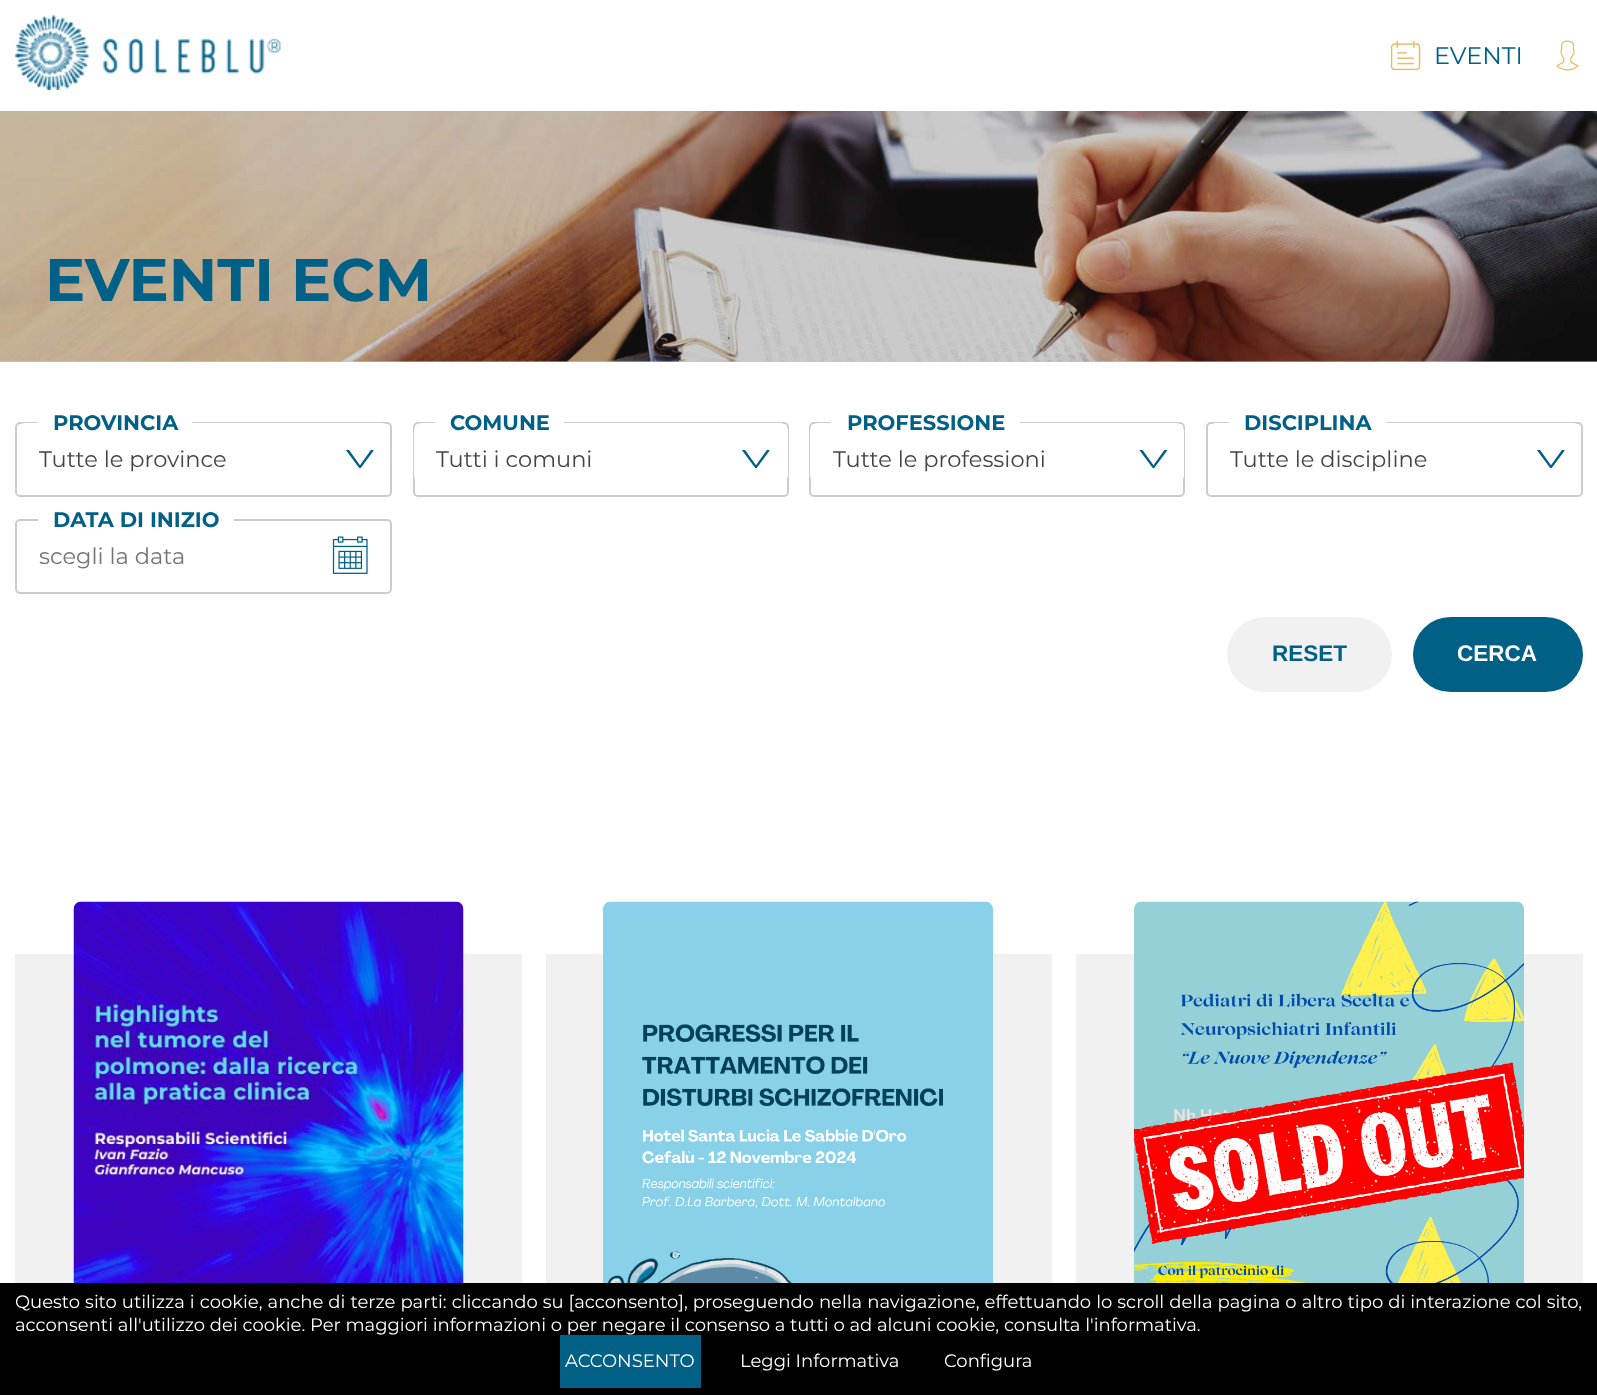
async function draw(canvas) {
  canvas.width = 1597;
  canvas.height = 1395;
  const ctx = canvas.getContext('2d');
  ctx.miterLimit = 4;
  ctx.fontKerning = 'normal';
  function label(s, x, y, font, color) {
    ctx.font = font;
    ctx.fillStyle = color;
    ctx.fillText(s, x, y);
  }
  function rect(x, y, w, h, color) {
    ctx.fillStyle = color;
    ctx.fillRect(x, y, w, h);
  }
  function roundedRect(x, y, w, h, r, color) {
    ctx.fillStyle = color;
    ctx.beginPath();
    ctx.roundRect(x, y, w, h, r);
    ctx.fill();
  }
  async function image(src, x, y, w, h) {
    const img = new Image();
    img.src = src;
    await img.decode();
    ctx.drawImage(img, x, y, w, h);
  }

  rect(0, 0, 1597, 1395, '#fff');
  rect(0, 361, 1597, 1, '#ccc');
  await image('assets/img1.png', 15, 15, 266, 75);
  await image('assets/img2.png', 1390, 40, 31, 31);
  label('EVENTI', 1434, 64, '24px Montserrat', '#006086');
  await image('assets/img3.png', 1556, 40, 23, 31);
  await image('assets/img4.png', 0, 111, 1597, 251);
  label('EVENTI ECM', 45, 301, 'bold 60px Montserrat', '#006086');
  ctx.beginPath();
  ctx.roundRect(16, 423, 375, 73, 4);
  ctx.strokeStyle = '#ccc';
  ctx.lineWidth = 2;
  ctx.stroke();
  rect(38, 422, 154, 1, '#fff');
  roundedRect(17, 423, 373, 60, 8, '#fff');
  label('PROVINCIA', 53, 430, 'bold 21px Montserrat', '#006086');
  await image('assets/img5.png', 346, 450, 28, 18);
  label('Tutte le province', 39, 467, '22.5px Montserrat', '#444');
  ctx.beginPath();
  ctx.roundRect(414, 423, 374, 73, 4);
  ctx.stroke();
  rect(435, 422, 129, 1, '#fff');
  roundedRect(414, 423, 374, 60, 8, '#fff');
  label('COMUNE', 450, 430, 'bold 21px Montserrat', '#006086');
  await image('assets/img5.png', 742, 450, 28, 18);
  label('Tutti i comuni', 436, 467, '22.5px Montserrat', '#444');
  ctx.beginPath();
  ctx.roundRect(810, 423, 374, 73, 4);
  ctx.stroke();
  rect(831, 422, 189, 1, '#fff');
  roundedRect(810, 423, 374, 60, 8, '#fff');
  label('PROFESSIONE', 847, 430, 'bold 21px Montserrat', '#006086');
  await image('assets/img6.png', 1139, 450, 28, 18);
  label('Tutte le professioni', 833, 467, '22.5px Montserrat', '#444');
  ctx.beginPath();
  ctx.roundRect(1207, 423, 375, 73, 4);
  ctx.stroke();
  rect(1229, 422, 157, 1, '#fff');
  roundedRect(1208, 423, 373, 60, 8, '#fff');
  label('DISCIPLINA', 1244, 430, 'bold 21px Montserrat', '#006086');
  await image('assets/img5.png', 1537, 450, 28, 18);
  label('Tutte le discipline', 1230, 467, '22.5px Montserrat', '#444');
  ctx.beginPath();
  ctx.roundRect(16, 520, 375, 73, 4);
  ctx.stroke();
  rect(38, 519, 196, 2, '#fff');
  label('DATA DI INIZIO', 53, 527, 'bold 21px Montserrat', '#006086');
  label('scegli la data', 39, 564, '22.5px Montserrat', '#757575');
  await image('assets/img7.png', 332, 536, 36, 38);
  roundedRect(1227, 617, 165, 75, 37.5, '#f1f1f1');
  label('RESET', 1272, 661, 'bold 22.5px Liberation Sans', '#006086');
  roundedRect(1413, 617, 170, 75, 37.5, '#006086');
  label('CERCA', 1457, 661, 'bold 22.5px Liberation Sans', '#fff');
  rect(15, 954, 507, 329, '#f1f1f1');
  await image('assets/img8.png', 73, 901, 391, 382);
  rect(546, 954, 506, 329, '#f1f1f1');
  await image('assets/img9.png', 603, 901, 390, 382);
  rect(1076, 954, 507, 329, '#f1f1f1');
  await image('assets/img10.png', 1134, 901, 390, 382);
  rect(0, 1283, 1597, 112, '#000');
  ctx.wordSpacing = '0.3px';
  label('Questo sito utilizza i cookie, anche di terze parti: cliccando su [acconsento], proseguendo nella navigazione, effettuando lo scroll della pagina o altro tipo di interazione col sito,', 15, 1308, '18px Montserrat', '#fff');
  ctx.wordSpacing = '0px';
  label('acconsenti all\'utilizzo dei cookie. Per maggiori informazioni o per negare il consenso a tutti o ad alcuni cookie, consulta l\'informativa.', 15, 1331, '18px Montserrat', '#fff');
  rect(560, 1335, 141, 53, '#006086');
  label('ACCONSENTO', 565, 1367, '18px Montserrat', '#fff');
  label('Leggi Informativa', 740, 1367, '18px Montserrat', '#fff');
  label('Configura', 944, 1367, '18px Montserrat', '#fff');
}

draw(document.querySelector('canvas'));
